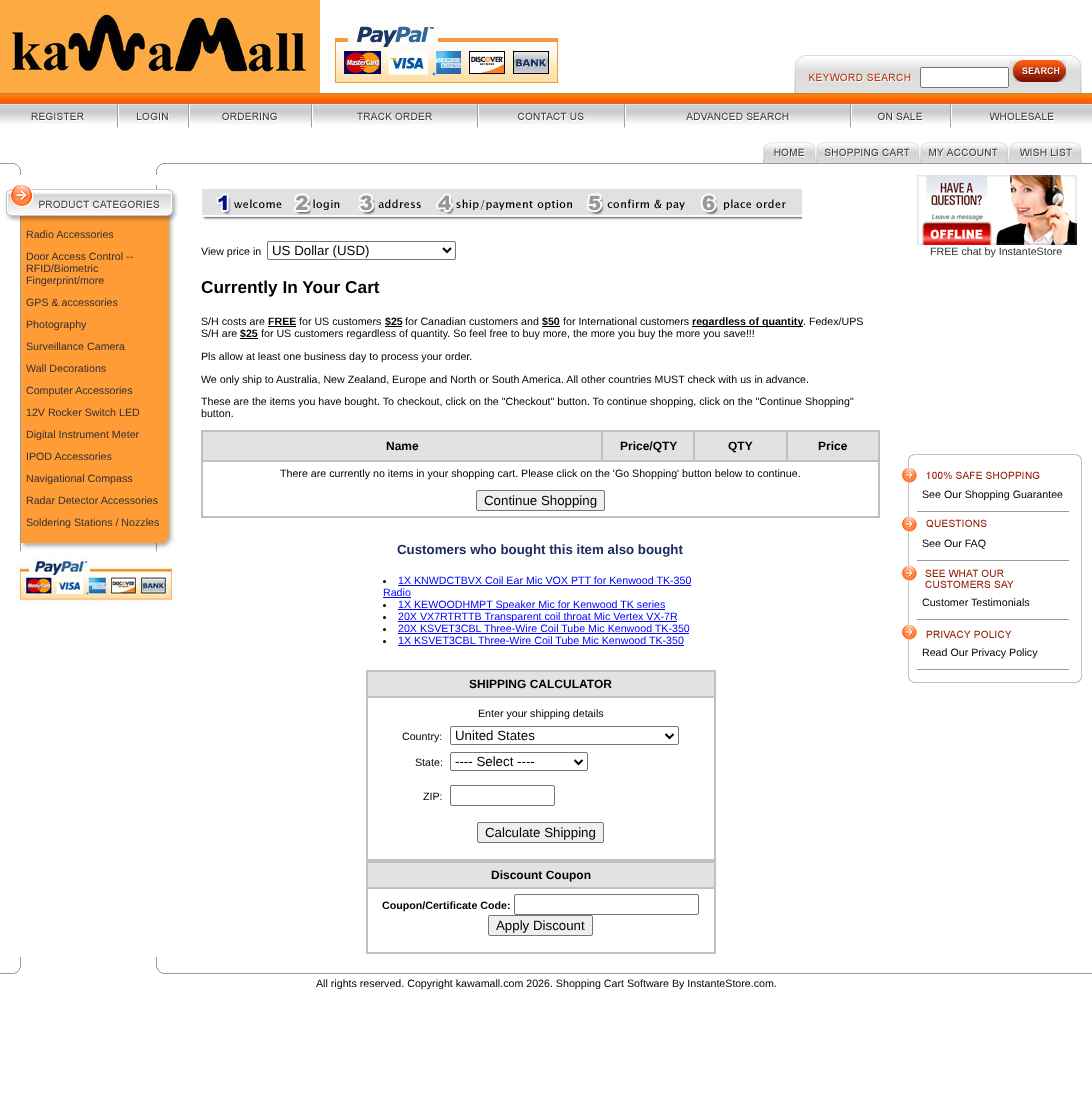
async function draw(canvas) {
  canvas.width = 1092;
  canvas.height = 1100;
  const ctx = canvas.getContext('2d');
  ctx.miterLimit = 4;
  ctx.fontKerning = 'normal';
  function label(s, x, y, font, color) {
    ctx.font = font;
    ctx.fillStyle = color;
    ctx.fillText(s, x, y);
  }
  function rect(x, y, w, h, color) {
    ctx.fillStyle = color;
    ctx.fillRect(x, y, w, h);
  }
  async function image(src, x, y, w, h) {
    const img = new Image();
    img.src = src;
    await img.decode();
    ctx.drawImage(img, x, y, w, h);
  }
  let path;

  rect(0, 0, 1092, 1100, '#fff');
  await image('assets/img1.png', 0, 0, 560, 93);
  await image('assets/img2.png', 805, 55, 1, 38);
  await image('assets/img3.png', 794, 55, 11, 38);
  await image('assets/img4.png', 806, 55, 263, 38);
  await image('assets/img5.png', 809, 73, 103, 9);
  ctx.beginPath();
  ctx.roundRect(920.5, 67.5, 88, 20, 1.5);
  ctx.fill();
  ctx.strokeStyle = '#767676';
  ctx.stroke();
  await image('assets/img6.png', 1009, 60, 57, 22);
  await image('assets/img7.png', 1069, 55, 2, 38);
  await image('assets/img8.png', 1071, 55, 11, 38);
  await image('assets/img9.png', 0, 93, 1092, 11);
  await image('assets/img10.png', 0, 104, 117, 20);
  await image('assets/img11.png', 31, 112, 54, 9);
  await image('assets/img12.png', 117, 104, 2, 24);
  await image('assets/img13.png', 119, 104, 69, 20);
  await image('assets/img14.png', 137, 112, 32, 9);
  await image('assets/img12.png', 188, 104, 2, 24);
  await image('assets/img15.png', 190, 104, 121, 20);
  await image('assets/img16.png', 222, 112, 56, 13);
  await image('assets/img12.png', 311, 104, 2, 24);
  await image('assets/img17.png', 313, 104, 164, 20);
  await image('assets/img18.png', 357, 112, 76, 13);
  await image('assets/img12.png', 477, 104, 2, 24);
  await image('assets/img19.png', 479, 104, 145, 20);
  await image('assets/img20.png', 518, 112, 67, 16);
  await image('assets/img12.png', 624, 104, 2, 24);
  await image('assets/img21.png', 626, 104, 224, 20);
  await image('assets/img22.png', 686, 104, 104, 24);
  await image('assets/img12.png', 850, 104, 2, 24);
  await image('assets/img23.png', 852, 104, 98, 20);
  await image('assets/img24.png', 878, 104, 45, 24);
  await image('assets/img12.png', 950, 104, 2, 24);
  await image('assets/img25.png', 952, 104, 140, 20);
  await image('assets/img26.png', 989, 112, 65, 9);
  await image('assets/img27.png', 763, 142, 53, 21);
  await image('assets/img28.png', 816, 142, 104, 21);
  await image('assets/img29.png', 920, 142, 89, 21);
  await image('assets/img30.png', 1009, 142, 73, 21);
  await image('assets/img31.png', 0, 163, 169, 12);
  rect(169, 163, 923, 1, '#9a9a9a');
  await image('assets/img32.png', 5, 185, 173, 38);
  rect(20, 223, 1, 310, '#9a9a9a');
  rect(21, 223, 148, 310, '#ff9c36');
  label('Radio Accessories', 26, 238, '10.67px Liberation Sans', '#313131');
  label('Door Access Control --', 26, 260, '10.67px Liberation Sans', '#313131');
  label('RFID/Biometric', 26, 272, '10.67px Liberation Sans', '#313131');
  label('Fingerprint/more', 26, 284, '10.67px Liberation Sans', '#313131');
  label('GPS & accessories', 26, 306, '10.67px Liberation Sans', '#313131');
  label('Photography', 26, 328, '10.67px Liberation Sans', '#313131');
  label('Surveillance Camera', 26, 350, '10.67px Liberation Sans', '#313131');
  label('Wall Decorations', 26, 372, '10.67px Liberation Sans', '#313131');
  label('Computer Accessories', 26, 394, '10.67px Liberation Sans', '#313131');
  label('12V Rocker Switch LED', 26, 416, '10.67px Liberation Sans', '#313131');
  label('Digital Instrument Meter', 26, 438, '10.67px Liberation Sans', '#313131');
  label('IPOD Accessories', 26, 460, '10.67px Liberation Sans', '#313131');
  label('Navigational Compass', 26, 482, '10.67px Liberation Sans', '#313131');
  label('Radar Detector Accessories', 26, 504, '10.67px Liberation Sans', '#313131');
  label('Soldering Stations / Nozzles', 26, 526, '10.67px Liberation Sans', '#313131');
  await image('assets/img33.png', 169, 223, 5, 310);
  await image('assets/img34.png', 16, 533, 160, 72);
  await image('assets/img35.png', 202, 189, 600, 31);
  label('View price in', 201, 255, '10.67px Liberation Sans', '#000');
  ctx.beginPath();
  ctx.roundRect(267.5, 241.5, 188, 18, 1.5);
  ctx.stroke();
  path = new Path2D('M443 248L447 252L451 248');
  ctx.strokeStyle = '#000';
  ctx.lineWidth = 2;
  ctx.stroke(path);
  label('US Dollar (USD)', 272, 255, '13.3px Liberation Sans', '#000');
  label('Currently In Your Cart', 201, 293, 'bold 17.25px Liberation Sans', '#000');
  label('S/H costs are', 201, 325, '10.67px Liberation Sans', '#000');
  label('FREE', 268, 325, 'bold 10.67px Liberation Sans', '#000');
  rect(268, 326, 28, 1, '#000');
  label('for US customers', 299, 325, '10.67px Liberation Sans', '#000');
  label('$25', 385, 325, 'bold 10.67px Liberation Sans', '#000');
  rect(385, 326, 17, 1, '#000');
  label('for Canadian customers and', 405, 325, '10.67px Liberation Sans', '#000');
  label('$50', 542, 325, 'bold 10.67px Liberation Sans', '#000');
  rect(542, 326, 18, 1, '#000');
  label('for International customers', 563, 325, '10.67px Liberation Sans', '#000');
  rect(692, 326, 111, 1, '#000');
  label('regardless of quantity', 692, 325, 'bold 10.67px Liberation Sans', '#000');
  label('. Fedex/UPS', 803, 325, '10.67px Liberation Sans', '#000');
  label('S/H are', 201, 337, '10.67px Liberation Sans', '#000');
  label('$25', 240, 337, 'bold 10.67px Liberation Sans', '#000');
  rect(240, 338, 18, 1, '#000');
  label('for US customers regardless of quantity. So feel free to buy more, the more you buy the more you save!!!', 261, 337, '10.67px Liberation Sans', '#000');
  label('Pls allow at least one business day to process your order.', 201, 360, '10.67px Liberation Sans', '#000');
  label('We only ship to Australia, New Zealand, Europe and North or South America. All other countries MUST check with us in advance.', 201, 383, '10.67px Liberation Sans', '#000');
  label('These are the items you have bought. To checkout, click on the "Checkout" button. To continue shopping, click on the "Continue Shopping"', 201, 405, '10.67px Liberation Sans', '#000');
  label('button.', 201, 417, '10.67px Liberation Sans', '#000');
  ctx.strokeStyle = '#c0c0c0';
  ctx.lineWidth = 1;
  ctx.strokeRect(201.5, 430.5, 678, 87);
  rect(203, 432, 675, 28, '#e2e2e2');
  ctx.strokeRect(202.5, 431.5, 399, 29);
  label('Name', 386, 450, 'bold 12px Liberation Sans', '#000');
  ctx.strokeRect(602.5, 431.5, 91, 29);
  label('Price/QTY', 620, 450, 'bold 12px Liberation Sans', '#000');
  ctx.strokeRect(694.5, 431.5, 92, 29);
  label('QTY', 728, 450, 'bold 12px Liberation Sans', '#000');
  ctx.strokeRect(787.5, 431.5, 91, 29);
  label('Price', 818, 450, 'bold 12px Liberation Sans', '#000');
  ctx.strokeRect(202.5, 461.5, 676, 55);
  label('There are currently no items in your shopping cart. Please click on the \'Go Shopping\' button below to continue.', 280, 477, '10.67px Liberation Sans', '#000');
  ctx.fillStyle = '#efefef';
  ctx.beginPath();
  ctx.roundRect(476.5, 490.5, 128, 20, 1.5);
  ctx.fill();
  ctx.strokeStyle = '#767676';
  ctx.stroke();
  label('Continue Shopping', 484, 505, '13.3px Liberation Sans', '#000');
  label('Customers who bought this item also bought', 397, 554, 'bold 13.3px Liberation Sans', '#1e2a63');
  ctx.fillStyle = '#000';
  ctx.beginPath();
  ctx.arc(384.5, 581.5, 1.5, 0, 2 * Math.PI);
  ctx.fill();
  label('1X KNWDCTBVX Coil Ear Mic VOX PTT for Kenwood TK-350', 398, 584, '10.67px Liberation Sans', '#00f');
  rect(398, 585, 293, 1, '#00f');
  label('Radio', 383, 596, '10.67px Liberation Sans', '#00f');
  rect(383, 597, 28, 1, '#00f');
  ctx.fillStyle = '#000';
  ctx.beginPath();
  ctx.arc(384.5, 605.5, 1.5, 0, 2 * Math.PI);
  ctx.fill();
  rect(398, 609, 267, 1, '#00f');
  label('1X KEWOODHMPT Speaker Mic for Kenwood TK series', 398, 608, '10.67px Liberation Sans', '#00f');
  ctx.fillStyle = '#000';
  ctx.beginPath();
  ctx.arc(384.5, 617.5, 1.5, 0, 2 * Math.PI);
  ctx.fill();
  rect(398, 621, 279, 1, '#00f');
  label('20X VX7RTRTTB Transparent coil throat Mic Vertex VX-7R', 398, 620, '10.67px Liberation Sans', '#00f');
  ctx.fillStyle = '#000';
  ctx.beginPath();
  ctx.arc(384.5, 629.5, 1.5, 0, 2 * Math.PI);
  ctx.fill();
  label('20X KSVET3CBL Three-Wire Coil Tube Mic Kenwood TK-350', 398, 632, '10.67px Liberation Sans', '#00f');
  rect(398, 633, 291, 1, '#00f');
  ctx.fillStyle = '#000';
  ctx.beginPath();
  ctx.arc(384.5, 641.5, 1.5, 0, 2 * Math.PI);
  ctx.fill();
  label('1X KSVET3CBL Three-Wire Coil Tube Mic Kenwood TK-350', 398, 644, '10.67px Liberation Sans', '#00f');
  rect(398, 645, 286, 1, '#00f');
  ctx.strokeStyle = '#c0c0c0';
  ctx.strokeRect(366.5, 670.5, 349, 190);
  ctx.fillStyle = '#e2e2e2';
  ctx.beginPath();
  ctx.rect(367.5, 671.5, 347, 25);
  ctx.fill();
  ctx.stroke();
  label('SHIPPING CALCULATOR', 469, 688, 'bold 12px Liberation Sans', '#000');
  ctx.strokeRect(367.5, 697.5, 347, 162);
  label('Enter your shipping details', 478, 717, '10.67px Liberation Sans', '#000');
  label('Country:', 402, 740, '10.67px Liberation Sans', '#000');
  ctx.beginPath();
  ctx.roundRect(450.5, 726.5, 228, 18, 1.5);
  ctx.strokeStyle = '#767676';
  ctx.stroke();
  path = new Path2D('M665.5 734L669.5 738L673.5 734');
  ctx.strokeStyle = '#000';
  ctx.lineWidth = 2;
  ctx.stroke(path);
  label('United States', 455, 740, '13.3px Liberation Sans', '#000');
  label('State:', 415, 766, '10.67px Liberation Sans', '#000');
  ctx.beginPath();
  ctx.roundRect(450.5, 752.5, 137, 18, 1.5);
  ctx.strokeStyle = '#767676';
  ctx.lineWidth = 1;
  ctx.stroke();
  path = new Path2D('M574.5 760L578.5 764L582.5 760');
  ctx.strokeStyle = '#000';
  ctx.lineWidth = 2;
  ctx.stroke(path);
  label('---- Select ----', 455, 766, '13.3px Liberation Sans', '#000');
  label('ZIP:', 423, 800, '10.67px Liberation Sans', '#000');
  ctx.beginPath();
  ctx.roundRect(450.5, 785.5, 104, 20, 1.5);
  ctx.strokeStyle = '#767676';
  ctx.lineWidth = 1;
  ctx.stroke();
  ctx.fillStyle = '#efefef';
  ctx.beginPath();
  ctx.roundRect(477.5, 822.5, 126, 20, 1.5);
  ctx.fill();
  ctx.stroke();
  label('Calculate Shipping', 485, 837, '13.3px Liberation Sans', '#000');
  ctx.strokeStyle = '#c0c0c0';
  ctx.strokeRect(366.5, 861.5, 349, 92);
  ctx.fillStyle = '#e2e2e2';
  ctx.beginPath();
  ctx.rect(367.5, 862.5, 347, 25);
  ctx.fill();
  ctx.stroke();
  label('Discount Coupon', 491, 879, 'bold 12px Liberation Sans', '#000');
  ctx.strokeRect(367.5, 888.5, 347, 64);
  label('Coupon/Certificate Code:', 382, 909, 'bold 10.67px Liberation Sans', '#000');
  ctx.beginPath();
  ctx.roundRect(514.5, 894.5, 184, 20, 1.5);
  ctx.strokeStyle = '#767676';
  ctx.stroke();
  ctx.fillStyle = '#efefef';
  ctx.beginPath();
  ctx.roundRect(488.5, 915.5, 104, 20, 1.5);
  ctx.fill();
  ctx.stroke();
  label('Apply Discount', 496, 930, '13.3px Liberation Sans', '#000');
  await image('assets/img36.png', 917, 175, 160, 70);
  label('FREE chat by InstanteStore', 930, 255, '10.67px Liberation Sans', '#313131');
  await image('assets/img37.png', 908, 454, 9, 14);
  rect(917, 454, 157, 1, '#c1c1c1');
  await image('assets/img38.png', 1074, 454, 8, 14);
  rect(908, 483, 1, 34, '#c1c1c1');
  await image('assets/img39.png', 902, 468, 15, 15);
  await image('assets/img40.png', 926, 471, 114, 8);
  label('See Our Shopping Guarantee', 922, 498, '10.67px Liberation Sans', '#000');
  rect(1081, 468, 1, 207, '#c1c1c1');
  rect(917, 511, 152, 1, '#9a9a9a');
  rect(908, 532, 1, 34, '#c1c1c1');
  await image('assets/img39.png', 902, 517, 15, 15);
  await image('assets/img41.png', 926, 519, 61, 9);
  label('See Our FAQ', 922, 547, '10.67px Liberation Sans', '#000');
  rect(917, 560, 152, 1, '#9a9a9a');
  rect(908, 581, 1, 44, '#c1c1c1');
  await image('assets/img39.png', 902, 566, 15, 15);
  await image('assets/img42.png', 925, 569, 89, 19);
  label('Customer Testimonials', 922, 606, '10.67px Liberation Sans', '#000');
  rect(917, 619, 152, 1, '#9a9a9a');
  rect(908, 640, 1, 35, '#c1c1c1');
  await image('assets/img39.png', 902, 625, 15, 15);
  await image('assets/img43.png', 926, 630, 86, 8);
  label('Read Our Privacy Policy', 922, 656, '10.67px Liberation Sans', '#000');
  rect(917, 669, 152, 1, '#9a9a9a');
  await image('assets/img44.png', 908, 675, 9, 8);
  rect(917, 682, 157, 1, '#c1c1c1');
  await image('assets/img45.png', 1074, 675, 8, 8);
  await image('assets/img46.png', 0, 957, 182, 17);
  rect(182, 973, 910, 1, '#9a9a9a');
  label('All rights reserved. Copyright kawamall.com 2026. Shopping Cart Software By InstanteStore.com.', 316, 987, '10.67px Liberation Sans', '#000');
}

draw(document.querySelector('canvas'));
